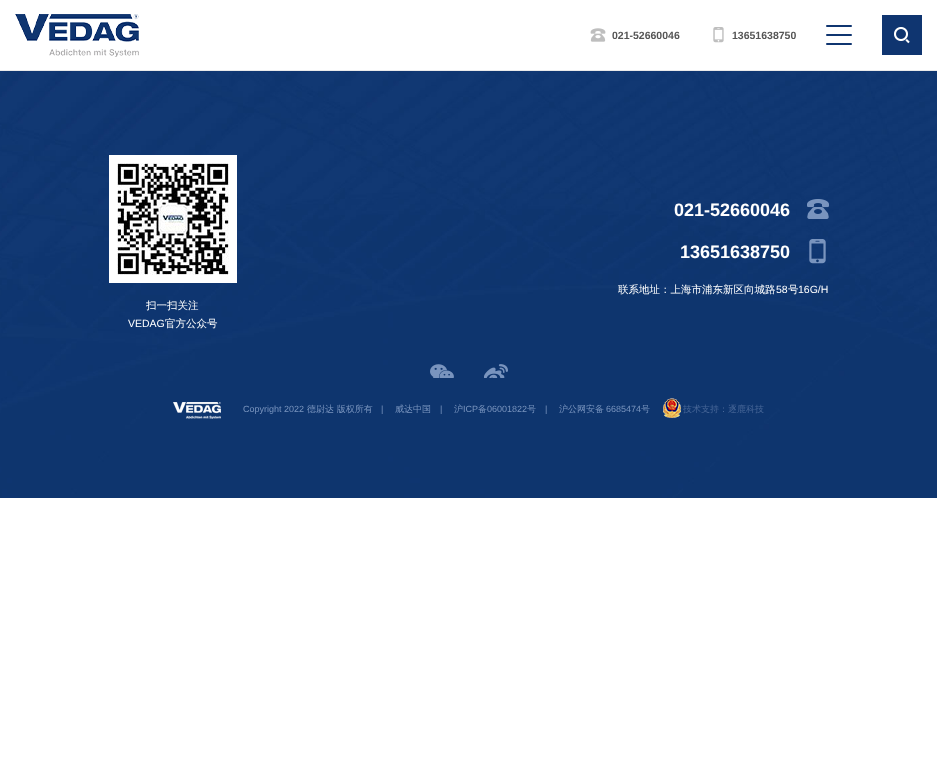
async function draw(canvas) {
  canvas.width = 937;
  canvas.height = 777;
  const ctx = canvas.getContext('2d');
  ctx.miterLimit = 4;
  ctx.fontKerning = 'normal';
  function label(s, x, y, font, color) {
    ctx.font = font;
    ctx.fillStyle = color;
    ctx.fillText(s, x, y);
  }
  function rect(x, y, w, h, color) {
    ctx.fillStyle = color;
    ctx.fillRect(x, y, w, h);
  }
  function roundedRect(x, y, w, h, r, color) {
    ctx.fillStyle = color;
    ctx.beginPath();
    ctx.roundRect(x, y, w, h, r);
    ctx.fill();
  }
  async function image(src, x, y, w, h) {
    const img = new Image();
    img.src = src;
    await img.decode();
    ctx.drawImage(img, x, y, w, h);
  }

  rect(0, 0, 937, 777, '#fff');
  rect(0, 70, 937, 1, '#eaeaea');
  await image('assets/img1.png', 15, 14, 124, 43);
  await image('assets/img2.png', 590, 28, 16, 14);
  label('021-52660046', 612, 39, 'bold 10.5px Liberation Sans', '#555');
  await image('assets/img3.png', 713, 27, 11, 16);
  label('13651638750', 732, 39, 'bold 10.5px Liberation Sans', '#555');
  roundedRect(826, 25, 26, 2, 1, '#0f3570');
  roundedRect(826, 34, 26, 2, 1, '#0f3570');
  roundedRect(826, 43, 26, 2, 1, '#0f3570');
  rect(882, 15, 40, 40, '#0f3570');
  await image('assets/img4.png', 894, 27, 16, 17);
  await image('assets/img5.png', 0, 71, 937, 427);
  label('021-52660046', 674, 216, 'bold 18px Liberation Sans', '#fff');
  await image('assets/img6.png', 807, 199, 22, 20);
  label('13651638750', 680, 258, 'bold 18px Liberation Sans', '#fff');
  await image('assets/img7.png', 809, 239, 17, 25);
  label('联系地址：上海市浦东新区向城路', 618, 293, '500 10.5px WenQuanYi Zen Hei', '#fff');
  label('58', 776, 293, '10.5px Liberation Sans', '#fff');
  label('号', 788, 293, '500 10.5px WenQuanYi Zen Hei', '#fff');
  label('16G/H', 798, 293, '10.5px Liberation Sans', '#fff');
  rect(109, 155, 128, 128, '#fff');
  await image('assets/img8.png', 117, 163, 112, 112);
  label('扫一扫关注', 146, 309, '500 10.5px WenQuanYi Zen Hei', '#fff');
  label('VEDAG', 128, 327, '10.5px Liberation Sans', '#fff');
  label('官方公众号', 165, 327, '500 10.5px WenQuanYi Zen Hei', '#fff');
  await image('assets/img9.png', 430, 364, 24, 14);
  await image('assets/img10.png', 484, 364, 24, 14);
  await image('assets/img11.png', 173, 402, 48, 17);
  label('Copyright 2022', 243, 412, '9px Liberation Sans', '#7994be');
  label('德尉达 版权所有', 307, 412, '500 9px WenQuanYi Zen Hei', '#7994be');
  label('|', 381, 412, '9px Liberation Sans', '#7994be');
  label('威达中国', 395, 412, '500 9px WenQuanYi Zen Hei', '#7994be');
  label('|', 440, 412, '9px Liberation Sans', '#7994be');
  label('沪', 454, 412, '500 9px WenQuanYi Zen Hei', '#7994be');
  label('ICP', 463, 412, '9px Liberation Sans', '#7994be');
  label('备', 478, 412, '500 9px WenQuanYi Zen Hei', '#7994be');
  label('06001822', 487, 412, '9px Liberation Sans', '#7994be');
  label('号', 527, 412, '500 9px WenQuanYi Zen Hei', '#7994be');
  label('|', 545, 412, '9px Liberation Sans', '#7994be');
  label('沪公网安备', 559, 412, '500 9px WenQuanYi Zen Hei', '#7994be');
  label('6685474', 606, 412, '9px Liberation Sans', '#7994be');
  label('号', 641, 412, '500 9px WenQuanYi Zen Hei', '#7994be');
  await image('assets/img12.png', 663, 398, 18, 20);
  label('技术支持：逐鹿科技', 683, 412, '500 9px WenQuanYi Zen Hei', '#486798');
}

draw(document.querySelector('canvas'));
